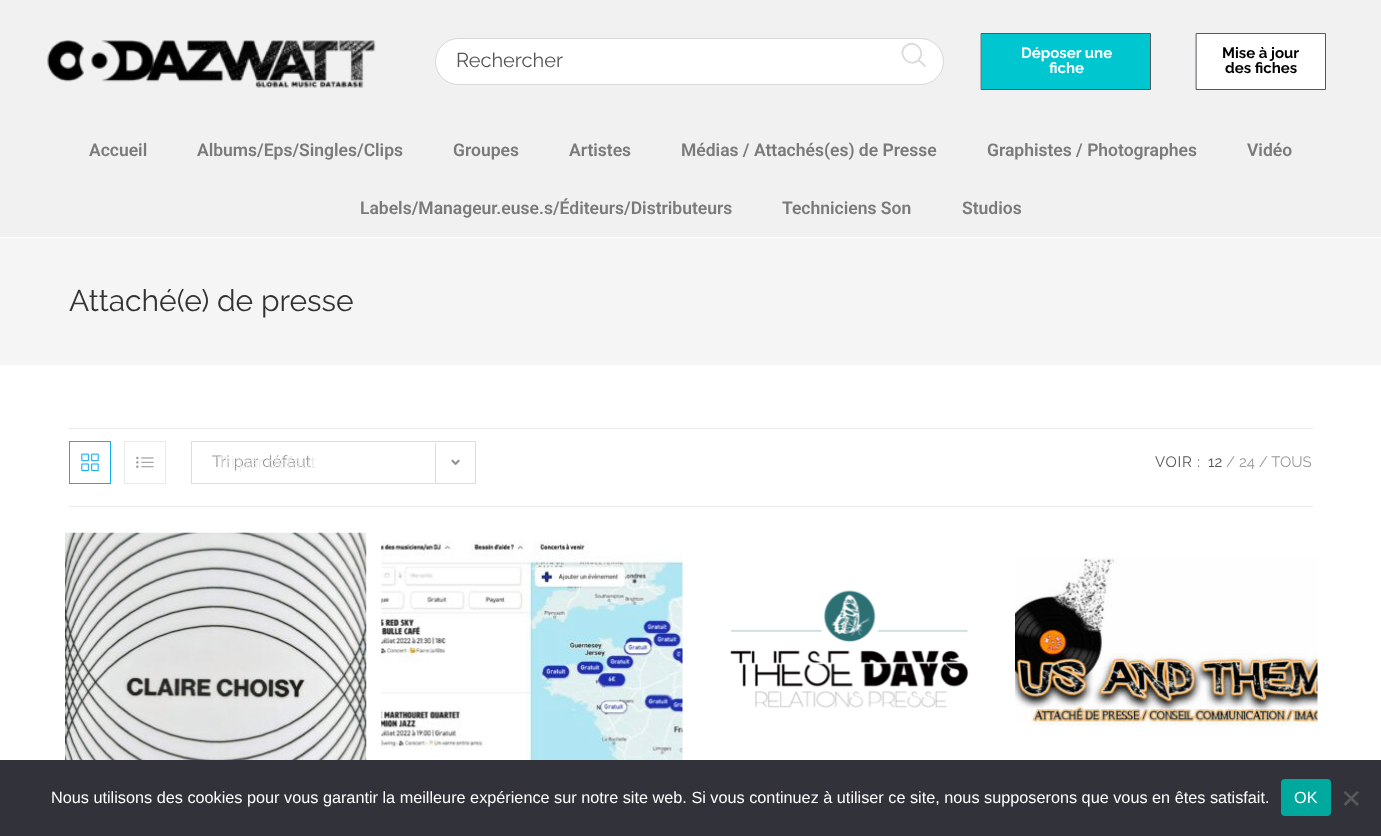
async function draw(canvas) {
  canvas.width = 1381;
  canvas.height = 836;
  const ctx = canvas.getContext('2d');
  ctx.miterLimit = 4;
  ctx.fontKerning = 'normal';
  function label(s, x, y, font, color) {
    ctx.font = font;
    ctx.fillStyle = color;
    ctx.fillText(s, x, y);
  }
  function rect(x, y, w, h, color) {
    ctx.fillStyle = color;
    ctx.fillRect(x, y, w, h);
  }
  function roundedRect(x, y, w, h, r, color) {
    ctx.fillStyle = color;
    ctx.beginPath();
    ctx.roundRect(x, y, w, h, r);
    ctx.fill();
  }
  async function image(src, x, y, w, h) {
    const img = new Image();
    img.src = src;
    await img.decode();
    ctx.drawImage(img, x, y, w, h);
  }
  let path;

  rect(0, 0, 1381, 836, '#fff');
  rect(0, 236, 1381, 1, '#f1f1f1');
  rect(0, 0, 1381, 236, '#f2f1f1');
  await image('assets/img1.png', 47, 40, 329, 48);
  ctx.fillStyle = '#fff';
  ctx.beginPath();
  ctx.roundRect(435.5, 38.5, 508, 46, 23);
  ctx.fill();
  ctx.strokeStyle = '#d8d8d8';
  ctx.stroke();
  label('Rechercher', 456, 67, '20px Raleway', '#555');
  path = new Path2D('M925 66L918.5 60M918.5 60C927 51 914 38 905 46.5C896.5 55 910 68.5 918.5 60Z');
  ctx.strokeStyle = '#dcdcdc';
  ctx.lineWidth = 1.9;
  ctx.lineCap = 'round';
  ctx.lineJoin = 'round';
  ctx.stroke(path);
  ctx.fillStyle = '#00c6cf';
  ctx.beginPath();
  ctx.rect(981.5, 33.5, 169, 56);
  ctx.fill();
  ctx.strokeStyle = '#54595f';
  ctx.lineWidth = 1;
  ctx.lineJoin = 'miter';
  ctx.stroke();
  label('Déposer une', 1021, 58, 'bold 15px Raleway', '#fff');
  label('fiche', 1049, 73, 'bold 15px Raleway', '#fff');
  ctx.beginPath();
  ctx.rect(1196.5, 33.5, 129, 56);
  ctx.fill();
  ctx.stroke();
  label('Mise à jour', 1222, 58, 'bold 15px Raleway', '#000');
  label('des fiches', 1225, 73, 'bold 15px Raleway', '#000');
  label('Accueil', 89, 156, '600 17.5px Roboto', '#7a7a7a');
  label('Albums/Eps/Singles/Clips', 197, 156, '600 17.5px Roboto', '#7a7a7a');
  label('Groupes', 453, 156, '600 17.5px Roboto', '#7a7a7a');
  label('Artistes', 569, 156, '600 17.5px Roboto', '#7a7a7a');
  label('Médias / Attachés(es) de Presse', 681, 156, '600 17.5px Roboto', '#7a7a7a');
  label('Graphistes / Photographes', 987, 156, '600 17.5px Roboto', '#7a7a7a');
  label('Vidéo', 1247, 156, '600 17.5px Roboto', '#7a7a7a');
  label('Labels/Manageur.euse.s/Éditeurs/Distributeurs', 360, 214, '600 17.5px Roboto', '#7a7a7a');
  label('Techniciens Son', 782, 214, '600 17.5px Roboto', '#7a7a7a');
  label('Studios', 962, 214, '600 17.5px Roboto', '#7a7a7a');
  rect(0, 238, 1381, 127, '#f5f5f5');
  label('Attaché(e) de presse', 69, 311, '30px Raleway', '#333');
  rect(69, 428, 1244, 1, '#eaeaea');
  rect(69, 506, 1244, 1, '#eaeaea');
  ctx.strokeStyle = '#13aff0';
  ctx.strokeRect(69.5, 441.5, 41, 42);
  await image('assets/img2.png', 81, 453, 18, 19);
  ctx.strokeStyle = '#eaeaea';
  ctx.strokeRect(124.5, 441.5, 41, 42);
  await image('assets/img3.png', 136, 456, 18, 12);
  ctx.strokeStyle = '#ddd';
  ctx.strokeRect(191.5, 441.5, 284, 42);
  label('Tri par défaut', 212, 467, '16.25px Raleway', '#999');
  rect(435, 443, 1, 40, '#ddd');
  await image('assets/img4.png', 451, 459, 9, 6);
  path = new Path2D('M460.5 459.5L465.5 464.5L470.5 459.5');
  ctx.strokeStyle = '#fff';
  ctx.lineWidth = 2.5;
  ctx.lineCap = 'butt';
  ctx.stroke(path);
  label('Tri par défaut', 217, 468, '16.25px Raleway', '#eaeaea');
  ctx.letterSpacing = '0.75px';
  label('VOIR :', 1155, 467, '15px Raleway', '#555');
  ctx.letterSpacing = '0px';
  label('12', 1208, 467, '15px Raleway', '#555');
  label('/ 24 / TOUS', 1226, 467, '15px Raleway', '#999');
  await image('assets/img5.png', 65, 532, 302, 228);
  await image('assets/img6.png', 381, 540, 302, 220);
  await image('assets/img7.png', 730, 590, 239, 118);
  await image('assets/img8.png', 1015, 557, 303, 169);
  rect(0, 760, 1381, 76, '#32323a');
  label('Nous utilisons des cookies pour vous garantir la meilleure expérience sur notre site web. Si vous continuez à utiliser ce site, nous supposerons que vous en êtes satisfait.', 51, 803, '16.25px Liberation Sans', '#fff');
  roundedRect(1281, 779, 50, 37, 4, '#00a99d');
  label('OK', 1294, 803, '16.25px Liberation Sans', '#fff');
  ctx.fillStyle = '#59595d';
  path = new Path2D('M1357 791L1359 792.5L1345.5 806L1343.5 804Z');
  ctx.fill(path);
  path = new Path2D('M1343.5 792.5L1345.5 791L1359 804L1357 806Z');
  ctx.fill(path);
}

draw(document.querySelector('canvas'));
